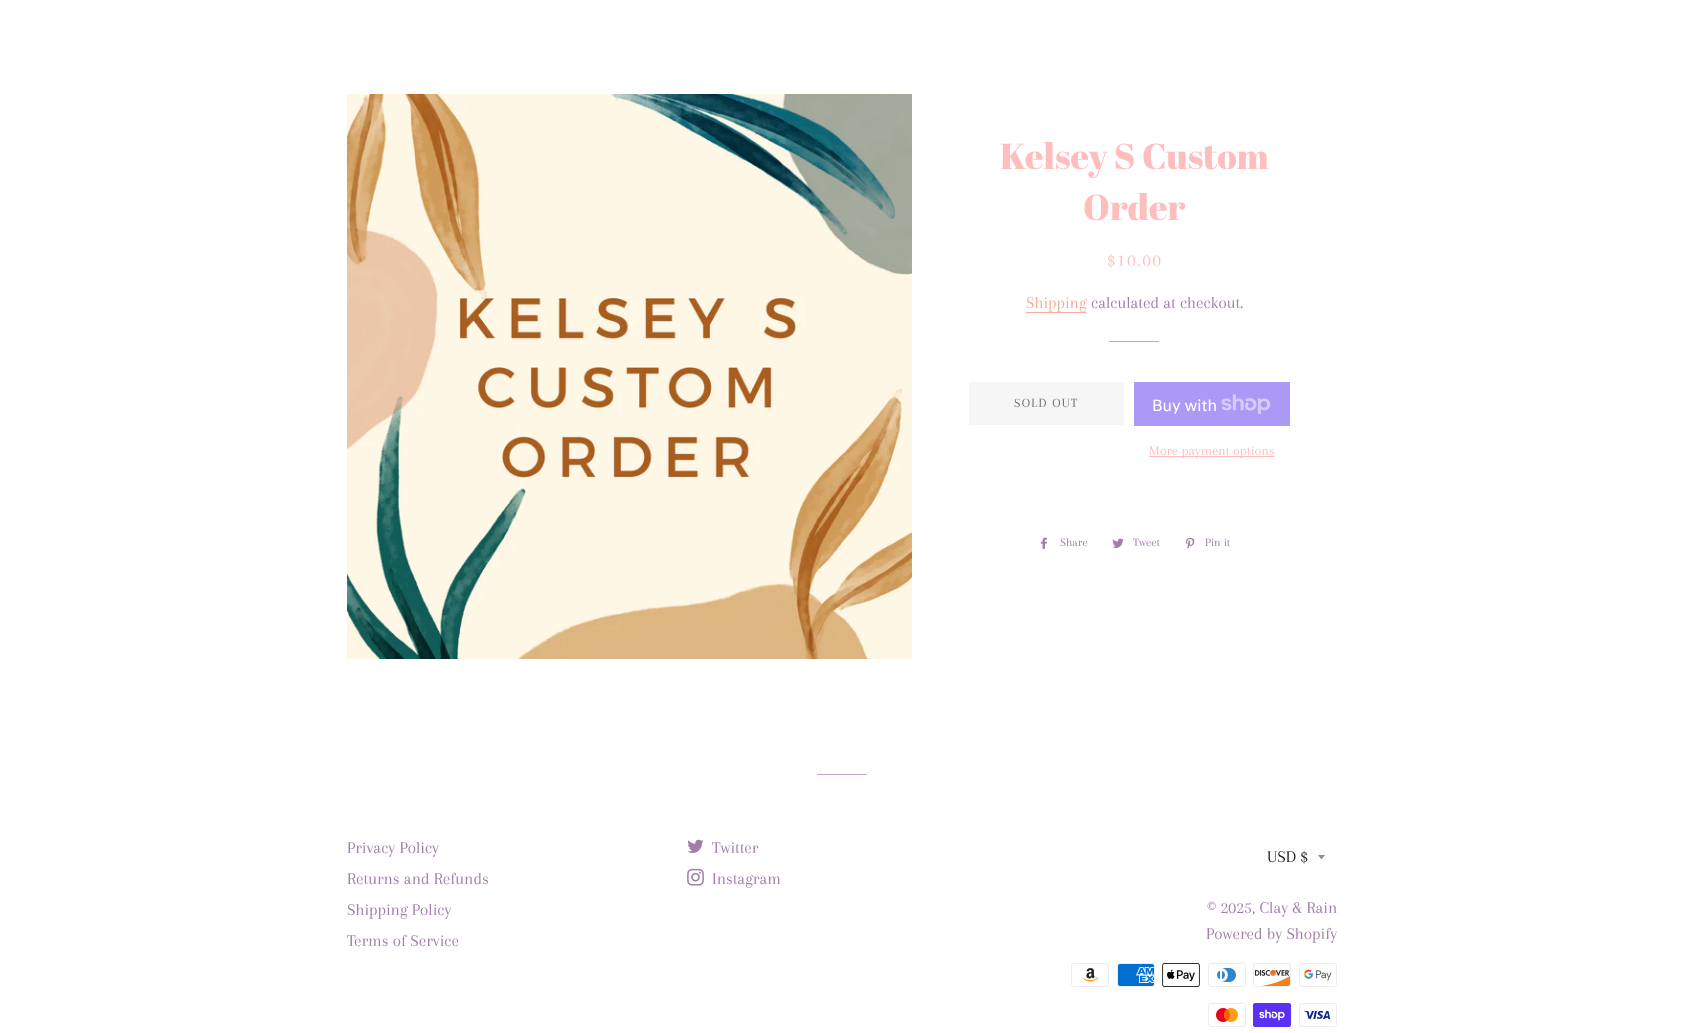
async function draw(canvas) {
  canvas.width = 1684;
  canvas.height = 1033;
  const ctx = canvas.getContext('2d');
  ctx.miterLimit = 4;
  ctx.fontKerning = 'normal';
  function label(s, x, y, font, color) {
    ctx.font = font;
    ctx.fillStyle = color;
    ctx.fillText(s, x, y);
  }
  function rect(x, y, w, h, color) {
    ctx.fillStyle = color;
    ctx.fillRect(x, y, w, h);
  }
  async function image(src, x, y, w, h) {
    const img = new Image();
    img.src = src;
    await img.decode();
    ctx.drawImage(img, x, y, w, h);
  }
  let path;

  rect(0, 0, 1684, 1033, '#fff');
  await image('assets/img1.png', 347, 94, 565, 565);
  label('Kelsey S Custom', 1000, 169, '36px Abril Fatface', '#ffbebe');
  label('Order', 1083, 220, '36px Abril Fatface', '#ffbebe');
  ctx.letterSpacing = '1.75px';
  label('$10.00', 1107, 266, '18px Arapey', '#ffbebe');
  ctx.letterSpacing = '0px';
  label('Shipping', 1026, 308, '17px Arapey', '#f5ab9e');
  rect(1026, 312, 60, 1, '#f5ab9e');
  label('calculated at checkout.', 1091, 308, '17px Arapey', '#a07ea7');
  rect(1109, 341, 50, 1, '#c0a6c5');
  rect(969, 382, 155, 43, '#f6f6f6');
  ctx.letterSpacing = '1.25px';
  label('SOLD OUT', 1014, 407, '13px Arapey', '#717171');
  rect(1134, 382, 156, 44, '#aa99f5');
  ctx.letterSpacing = '0px';
  label('Buy with', 1152, 411, '16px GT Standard', '#fff');
  await image('assets/img2.png', 1221, 394, 50, 20);
  rect(1149, 456, 126, 1, '#ffbebe');
  label('More payment options', 1149, 455, '14px Arapey', '#ffbebe');
  await image('assets/img3.png', 1040, 537, 7, 12);
  label('Share', 1060, 546, '12px Arapey', '#a07ea7');
  await image('assets/img4.png', 1112, 538, 12, 10);
  label('Tweet', 1133, 546, '12px Arapey', '#a07ea7');
  await image('assets/img5.png', 1185, 537, 10, 12);
  label('Pin it', 1205, 546, '12px Arapey', '#a07ea7');
  rect(817, 774, 50, 1, '#c0a6c5');
  label('Privacy Policy', 347, 853, '17px Arapey', '#a07ea7');
  label('Returns and Refunds', 347, 884, '17px Arapey', '#a07ea7');
  label('Shipping Policy', 347, 915, '17px Arapey', '#a07ea7');
  label('Terms of Service', 347, 946, '17px Arapey', '#a07ea7');
  await image('assets/img6.png', 687, 839, 17, 14);
  label('Twitter', 712, 853, '17px Arapey', '#a07ea7');
  await image('assets/img7.png', 687, 868, 17, 18);
  label('Instagram', 712, 884, '17px Arapey', '#a07ea7');
  path = new Path2D('M1318 855C1322.5 860.5 1320.5 860.5 1325 855Z');
  ctx.fill(path);
  label('USD $', 1267, 862, '17px Arapey', '#1c1d1d');
  label('© 2025, Clay & Rain', 1207, 913, '17px Arapey', '#a07ea7');
  label('Powered by Shopify', 1206, 939, '17px Arapey', '#a07ea7');
  await image('assets/img8.png', 1071, 963, 38, 24);
  await image('assets/img9.png', 1117, 963, 38, 24);
  await image('assets/img10.png', 1162, 963, 38, 24);
  await image('assets/img11.png', 1208, 963, 38, 24);
  await image('assets/img12.png', 1253, 963, 38, 24);
  await image('assets/img13.png', 1299, 963, 38, 24);
  await image('assets/img14.png', 1208, 1003, 38, 24);
  await image('assets/img15.png', 1253, 1003, 38, 24);
  await image('assets/img16.png', 1299, 1003, 38, 24);
}

draw(document.querySelector('canvas'));
